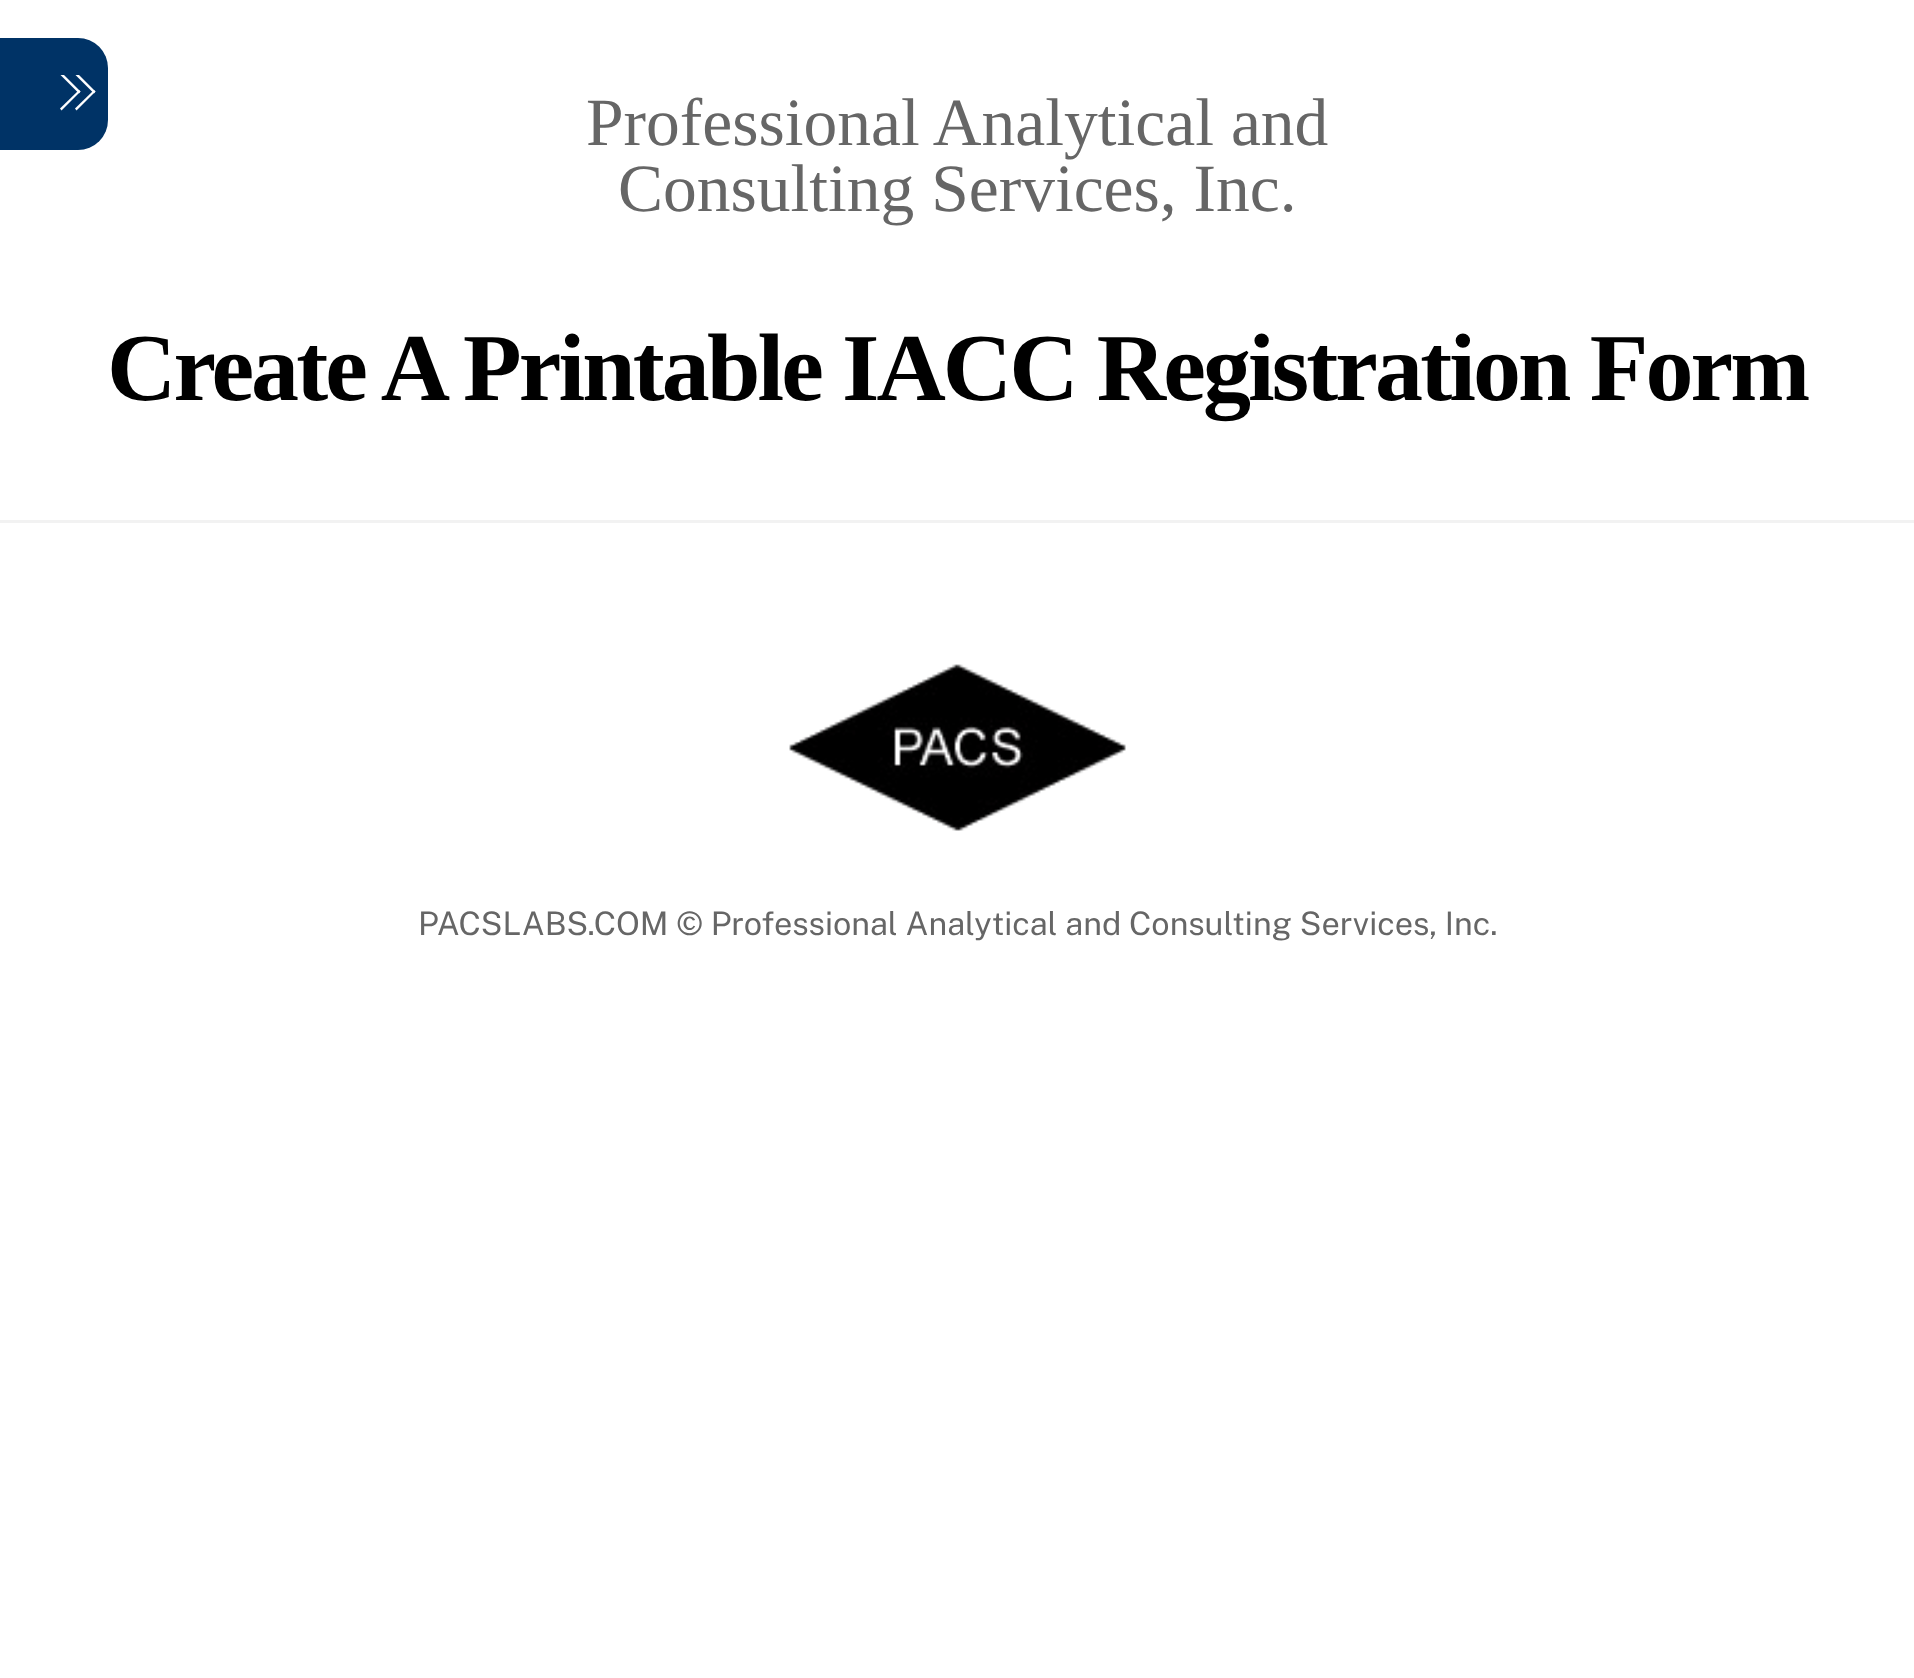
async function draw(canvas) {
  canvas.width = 1914;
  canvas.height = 1678;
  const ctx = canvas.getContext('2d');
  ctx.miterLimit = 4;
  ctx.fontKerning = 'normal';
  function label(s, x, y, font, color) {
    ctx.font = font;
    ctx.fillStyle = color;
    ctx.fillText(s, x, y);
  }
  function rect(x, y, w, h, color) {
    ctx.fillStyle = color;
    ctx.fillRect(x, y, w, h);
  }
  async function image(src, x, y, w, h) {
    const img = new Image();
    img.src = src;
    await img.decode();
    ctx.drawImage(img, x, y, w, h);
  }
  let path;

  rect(0, 0, 1914, 1678, '#fff');
  ctx.fillStyle = '#036';
  ctx.beginPath();
  ctx.roundRect(0, 38, 108, 112, [0, 30, 30, 0]);
  ctx.fill();
  ctx.save();
  ctx.beginPath();
  ctx.rect(50, 75, 55, 45);
  ctx.clip();
  ctx.fillStyle = '#fff';
  path = new Path2D('M70.5 66.5L95.5 91.5L94 93.5L68.5 68Z');
  ctx.fill(path);
  ctx.restore();
  ctx.fillStyle = '#fff';
  path = new Path2D('M94 90L95.5 91.5L76.5 110.5L75 108.5Z');
  ctx.fill(path);
  ctx.save();
  ctx.beginPath();
  ctx.rect(50, 75, 55, 45);
  ctx.clip();
  path = new Path2D('M55.5 66.5L80.5 91.5L79 93.5L53.5 68Z');
  ctx.fill(path);
  ctx.restore();
  path = new Path2D('M79 90L80.5 91.5L61.5 110.5L60 108.5Z');
  ctx.fill(path);
  label('Professional Analytical and', 586, 145, '67.5px Liberation Serif', '#666');
  label('Consulting Services, Inc.', 618, 211, '67.5px Liberation Serif', '#666');
  ctx.letterSpacing = '-2.9px';
  label('Create A Printable IACC Registration Form', 107, 400, 'bold 96px Liberation Serif', '#000');
  rect(0, 520, 1914, 3, '#f2f2f2');
  await image('assets/img1.png', 789, 664, 337, 167);
  ctx.letterSpacing = '0px';
  label('PACSLABS.COM © Professional Analytical and Consulting Services, Inc.', 418, 935, '32.4px Public Sans', '#666');
}

draw(document.querySelector('canvas'));
